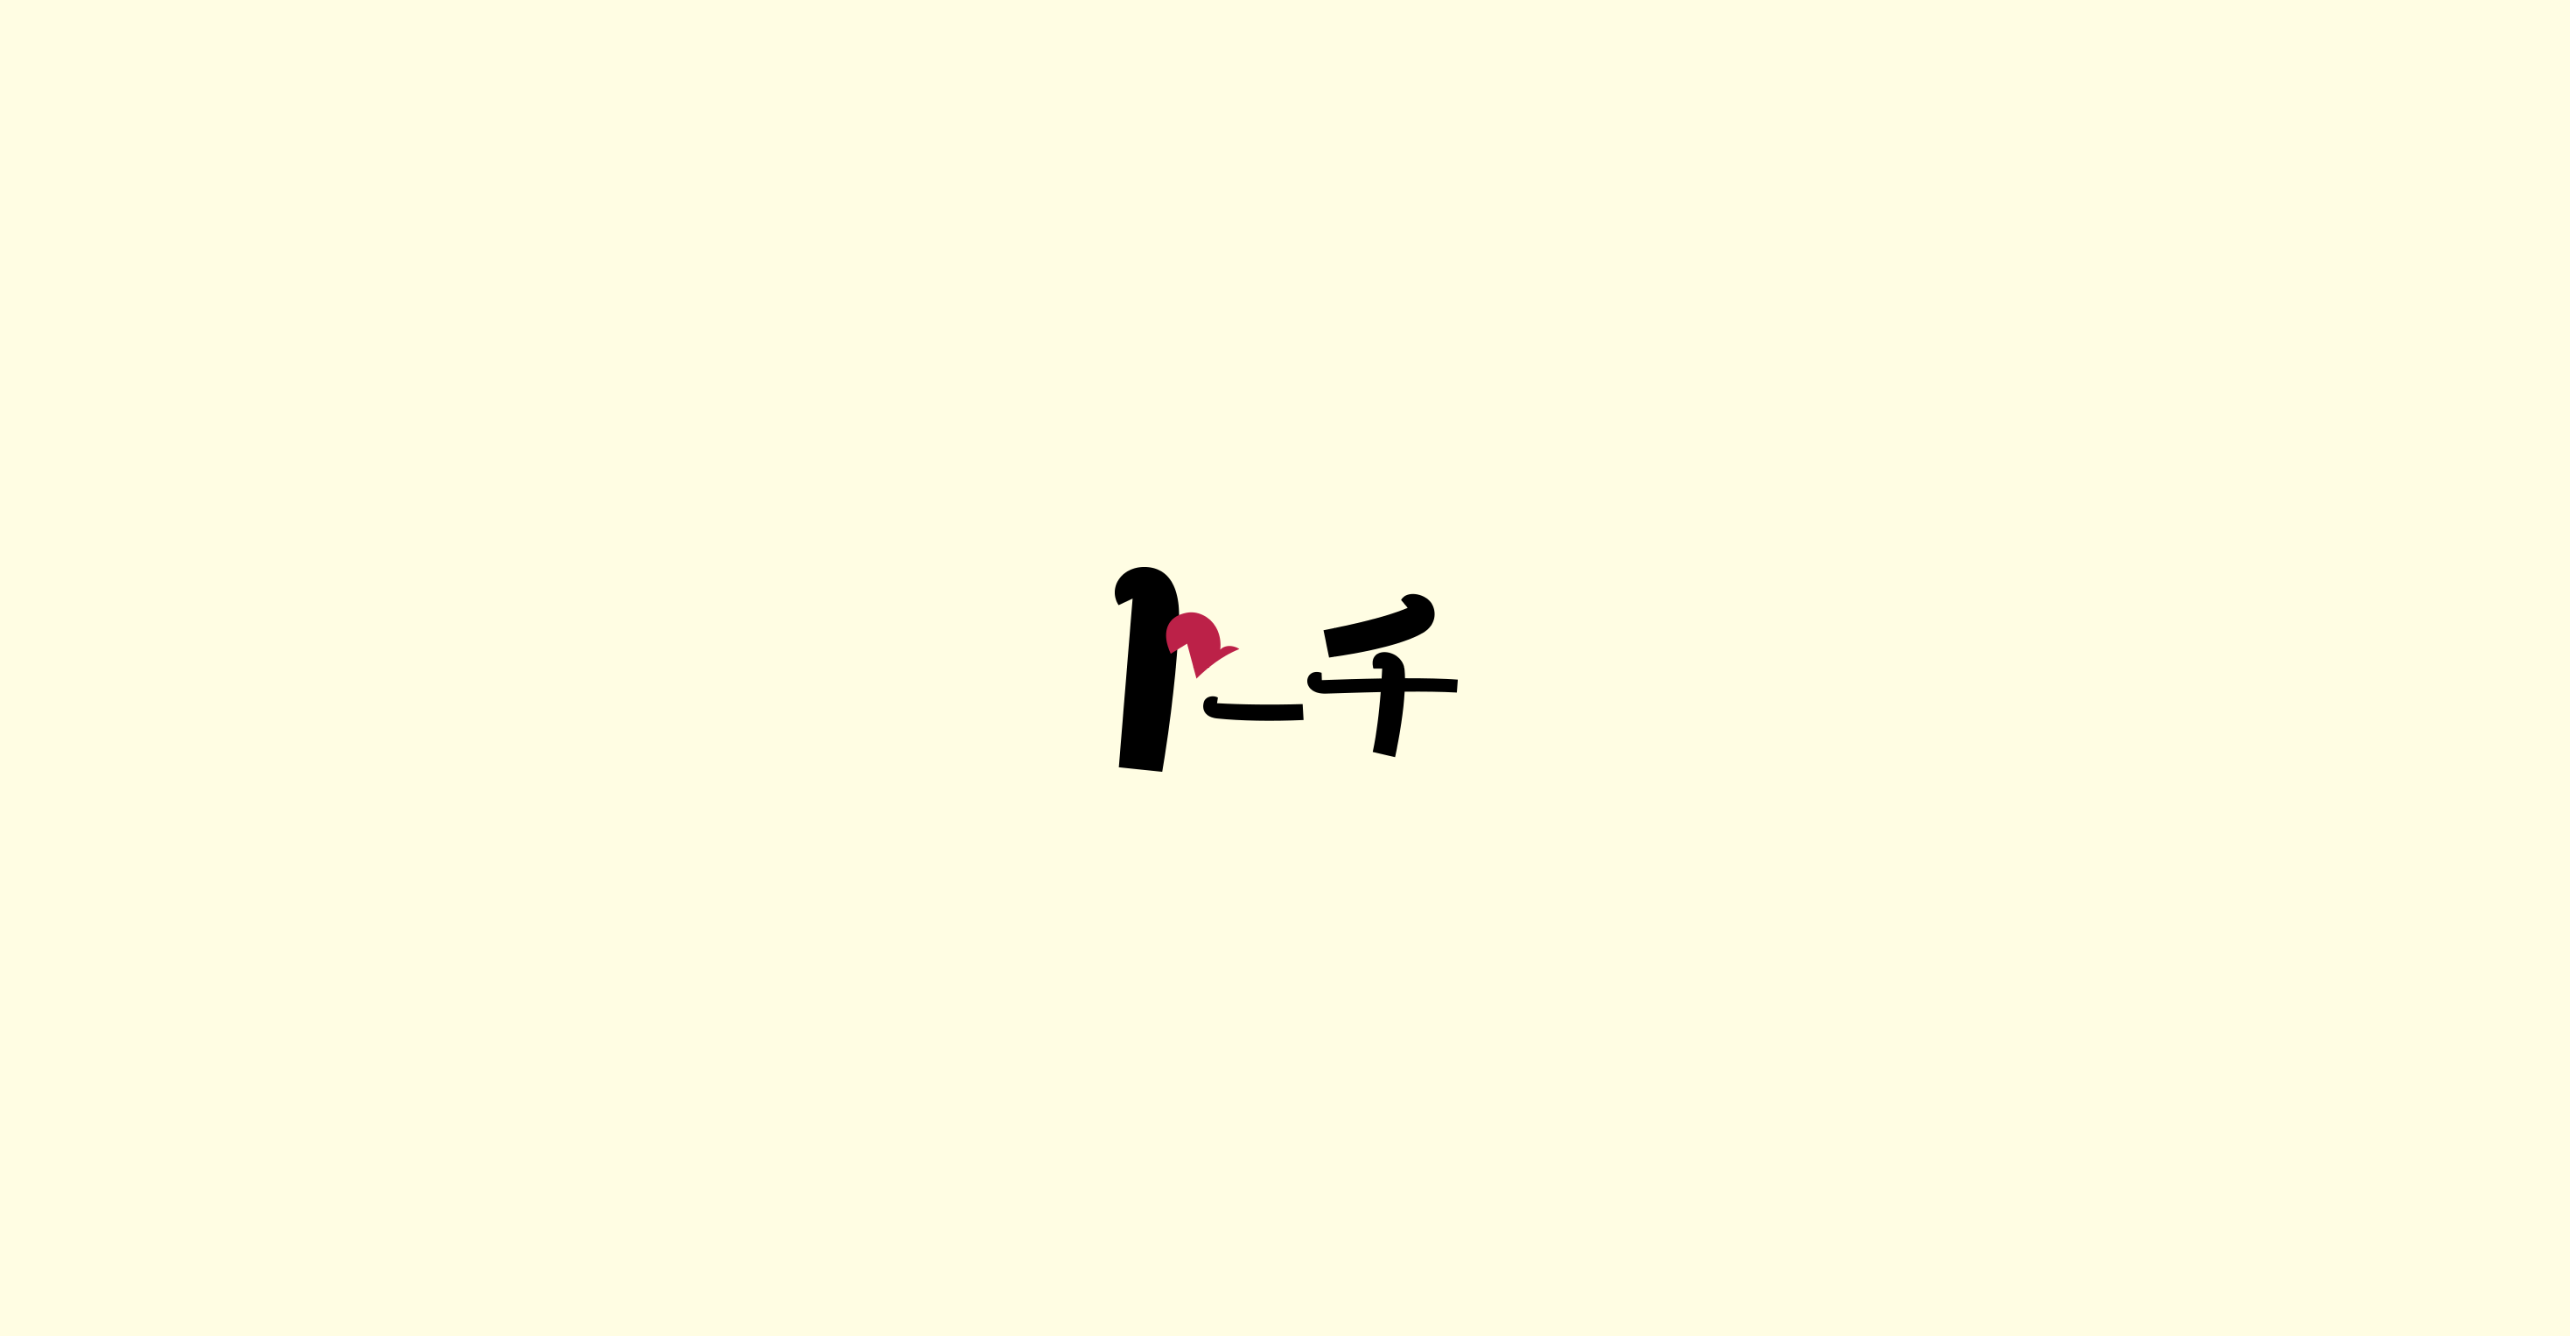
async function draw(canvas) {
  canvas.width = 2570;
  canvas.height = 1336;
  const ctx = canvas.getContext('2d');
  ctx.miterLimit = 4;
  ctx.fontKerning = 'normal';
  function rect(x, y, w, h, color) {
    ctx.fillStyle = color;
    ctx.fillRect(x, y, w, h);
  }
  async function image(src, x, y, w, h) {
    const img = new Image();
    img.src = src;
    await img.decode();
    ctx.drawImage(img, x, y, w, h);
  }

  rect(0, 0, 2570, 1336, '#fffde3');
  await image('assets/img1.png', 1114, 567, 344, 205);
}

draw(document.querySelector('canvas'));
